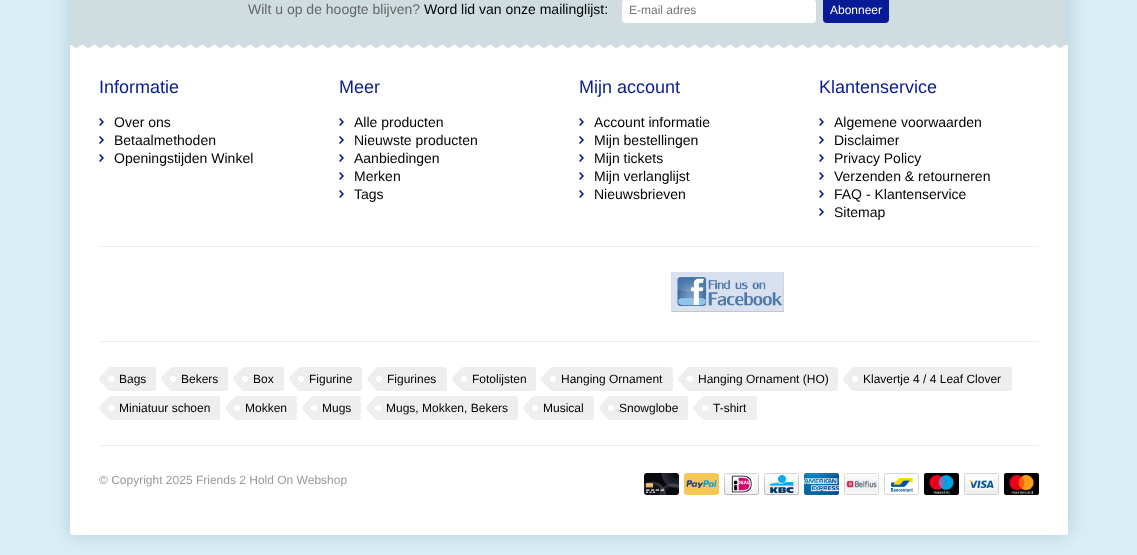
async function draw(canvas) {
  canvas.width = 1137;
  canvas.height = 555;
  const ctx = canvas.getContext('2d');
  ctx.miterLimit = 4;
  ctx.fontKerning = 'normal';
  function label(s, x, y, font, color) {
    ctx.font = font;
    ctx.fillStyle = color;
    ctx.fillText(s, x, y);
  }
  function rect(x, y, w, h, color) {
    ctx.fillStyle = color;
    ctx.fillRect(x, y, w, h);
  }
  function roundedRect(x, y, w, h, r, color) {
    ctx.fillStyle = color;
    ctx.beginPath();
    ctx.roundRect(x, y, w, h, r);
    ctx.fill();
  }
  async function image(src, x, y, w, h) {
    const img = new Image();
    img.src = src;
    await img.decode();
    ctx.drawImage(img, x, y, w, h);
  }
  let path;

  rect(0, 0, 1137, 555, '#d8eff7');
  ctx.fillStyle = '#00000026';
  ctx.filter = 'blur(10px)';
  ctx.beginPath();
  ctx.roundRect(70, -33, 998, 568, 3);
  ctx.fill();
  ctx.filter = 'none';
  roundedRect(70, -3, 998, 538, 3, '#fff');
  rect(70, 0, 998, 48, '#cfdde1');
  label('Wilt u op de hoogte blijven?', 248, 14, '14px Liberation Sans', '#666');
  label('Word lid van onze mailinglijst:', 424, 14, '14px Liberation Sans', '#000');
  roundedRect(622, -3, 194, 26, 4, '#fff');
  ctx.fillStyle = '#979898';
  path = new Path2D('M626-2H812C814-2 816 0 816 2V1C816-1 814-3 812-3H626C624-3 622-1 622 1V2C622 0 624-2 626-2Z');
  ctx.fill(path);
  label('E-mail adres', 629, 14, '12px Liberation Sans', '#757575');
  roundedRect(823, -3, 66, 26, 4, '#081b96');
  label('Abonneer', 830, 14, '12px Liberation Sans', '#fff');
  await image('assets/img1.png', 70, 45, 998, 3);
  rect(99, 246, 940, 1, '#eee');
  label('Informatie', 99, 93, '18px Liberation Sans', '#081b96');
  rect(99, 118, 5, 8, '#081b96');
  await image('assets/img2.png', 99, 113, 220, 18);
  label('Over ons', 114, 127, '14px Liberation Sans', '#000');
  rect(99, 136, 5, 8, '#081b96');
  await image('assets/img2.png', 99, 131, 220, 18);
  label('Betaalmethoden', 114, 145, '14px Liberation Sans', '#000');
  rect(99, 154, 5, 8, '#081b96');
  await image('assets/img2.png', 99, 149, 220, 18);
  label('Openingstijden Winkel', 114, 163, '14px Liberation Sans', '#000');
  label('Meer', 339, 93, '18px Liberation Sans', '#081b96');
  rect(339, 118, 5, 8, '#081b96');
  await image('assets/img2.png', 339, 113, 220, 18);
  label('Alle producten', 354, 127, '14px Liberation Sans', '#000');
  rect(339, 136, 5, 8, '#081b96');
  await image('assets/img2.png', 339, 131, 220, 18);
  label('Nieuwste producten', 354, 145, '14px Liberation Sans', '#000');
  rect(339, 154, 5, 8, '#081b96');
  await image('assets/img2.png', 339, 149, 220, 18);
  label('Aanbiedingen', 354, 163, '14px Liberation Sans', '#000');
  rect(339, 172, 5, 8, '#081b96');
  await image('assets/img2.png', 339, 167, 220, 18);
  label('Merken', 354, 181, '14px Liberation Sans', '#000');
  rect(339, 190, 5, 8, '#081b96');
  await image('assets/img2.png', 339, 185, 220, 18);
  label('Tags', 354, 199, '14px Liberation Sans', '#000');
  label('Mijn account', 579, 93, '18px Liberation Sans', '#081b96');
  rect(579, 118, 5, 8, '#081b96');
  await image('assets/img2.png', 579, 113, 220, 18);
  label('Account informatie', 594, 127, '14px Liberation Sans', '#000');
  rect(579, 136, 5, 8, '#081b96');
  await image('assets/img2.png', 579, 131, 220, 18);
  label('Mijn bestellingen', 594, 145, '14px Liberation Sans', '#000');
  rect(579, 154, 5, 8, '#081b96');
  await image('assets/img2.png', 579, 149, 220, 18);
  label('Mijn tickets', 594, 163, '14px Liberation Sans', '#000');
  rect(579, 172, 5, 8, '#081b96');
  await image('assets/img2.png', 579, 167, 220, 18);
  label('Mijn verlanglijst', 594, 181, '14px Liberation Sans', '#000');
  rect(579, 190, 5, 8, '#081b96');
  await image('assets/img2.png', 579, 185, 220, 18);
  label('Nieuwsbrieven', 594, 199, '14px Liberation Sans', '#000');
  label('Klantenservice', 819, 93, '18px Liberation Sans', '#081b96');
  rect(819, 118, 5, 8, '#081b96');
  await image('assets/img2.png', 819, 113, 220, 18);
  label('Algemene voorwaarden', 834, 127, '14px Liberation Sans', '#000');
  rect(819, 136, 5, 8, '#081b96');
  await image('assets/img2.png', 819, 131, 220, 18);
  label('Disclaimer', 834, 145, '14px Liberation Sans', '#000');
  rect(819, 154, 5, 8, '#081b96');
  await image('assets/img2.png', 819, 149, 220, 18);
  label('Privacy Policy', 834, 163, '14px Liberation Sans', '#000');
  rect(819, 172, 5, 8, '#081b96');
  await image('assets/img2.png', 819, 167, 220, 18);
  label('Verzenden & retourneren', 834, 181, '14px Liberation Sans', '#000');
  rect(819, 190, 5, 8, '#081b96');
  await image('assets/img2.png', 819, 185, 220, 18);
  label('FAQ - Klantenservice', 834, 199, '14px Liberation Sans', '#000');
  rect(819, 208, 5, 8, '#081b96');
  await image('assets/img2.png', 819, 203, 220, 18);
  label('Sitemap', 834, 217, '14px Liberation Sans', '#000');
  rect(99, 341, 940, 1, '#eee');
  await image('assets/img3.png', 671, 272, 113, 40);
  rect(99, 445, 940, 1, '#eee');
  ctx.beginPath();
  ctx.roundRect(99, 367, 57, 24, [0, 3, 3, 0]);
  ctx.fill();
  await image('assets/img4.png', 99, 367, 16, 24);
  label('Bags', 119, 383, '12px Liberation Sans', '#000');
  ctx.fillStyle = '#eee';
  ctx.beginPath();
  ctx.roundRect(161, 367, 67, 24, [0, 3, 3, 0]);
  ctx.fill();
  await image('assets/img5.png', 161, 367, 15, 24);
  label('Bekers', 181, 383, '12px Liberation Sans', '#000');
  ctx.fillStyle = '#eee';
  ctx.beginPath();
  ctx.roundRect(233, 367, 51, 24, [0, 3, 3, 0]);
  ctx.fill();
  await image('assets/img5.png', 233, 367, 15, 24);
  label('Box', 253, 383, '12px Liberation Sans', '#000');
  ctx.fillStyle = '#eee';
  ctx.beginPath();
  ctx.roundRect(289, 367, 73, 24, [0, 3, 3, 0]);
  ctx.fill();
  await image('assets/img5.png', 289, 367, 15, 24);
  label('Figurine', 309, 383, '12px Liberation Sans', '#000');
  ctx.fillStyle = '#eee';
  ctx.beginPath();
  ctx.roundRect(367, 367, 80, 24, [0, 3, 3, 0]);
  ctx.fill();
  await image('assets/img5.png', 367, 367, 15, 24);
  label('Figurines', 387, 383, '12px Liberation Sans', '#000');
  ctx.fillStyle = '#eee';
  ctx.beginPath();
  ctx.roundRect(452, 367, 84, 24, [0, 3, 3, 0]);
  ctx.fill();
  await image('assets/img5.png', 452, 367, 15, 24);
  label('Fotolijsten', 472, 383, '12px Liberation Sans', '#000');
  ctx.fillStyle = '#eee';
  ctx.beginPath();
  ctx.roundRect(541, 367, 132, 24, [0, 3, 3, 0]);
  ctx.fill();
  await image('assets/img5.png', 541, 367, 15, 24);
  label('Hanging Ornament', 561, 383, '12px Liberation Sans', '#000');
  ctx.fillStyle = '#eee';
  ctx.beginPath();
  ctx.roundRect(678, 367, 160, 24, [0, 3, 3, 0]);
  ctx.fill();
  await image('assets/img5.png', 678, 367, 15, 24);
  label('Hanging Ornament (HO)', 698, 383, '12px Liberation Sans', '#000');
  ctx.fillStyle = '#eee';
  ctx.beginPath();
  ctx.roundRect(843, 367, 169, 24, [0, 3, 3, 0]);
  ctx.fill();
  await image('assets/img5.png', 843, 367, 15, 24);
  label('Klavertje 4 / 4 Leaf Clover', 863, 383, '12px Liberation Sans', '#000');
  ctx.fillStyle = '#eee';
  ctx.beginPath();
  ctx.roundRect(99, 396, 121, 24, [0, 3, 3, 0]);
  ctx.fill();
  await image('assets/img4.png', 99, 396, 16, 24);
  label('Miniatuur schoen', 119, 412, '12px Liberation Sans', '#000');
  ctx.fillStyle = '#eee';
  ctx.beginPath();
  ctx.roundRect(225, 396, 72, 24, [0, 3, 3, 0]);
  ctx.fill();
  await image('assets/img5.png', 225, 396, 15, 24);
  label('Mokken', 245, 412, '12px Liberation Sans', '#000');
  ctx.fillStyle = '#eee';
  ctx.beginPath();
  ctx.roundRect(302, 396, 59, 24, [0, 3, 3, 0]);
  ctx.fill();
  await image('assets/img5.png', 302, 396, 15, 24);
  label('Mugs', 322, 412, '12px Liberation Sans', '#000');
  ctx.fillStyle = '#eee';
  ctx.beginPath();
  ctx.roundRect(366, 396, 152, 24, [0, 3, 3, 0]);
  ctx.fill();
  await image('assets/img5.png', 366, 396, 15, 24);
  label('Mugs, Mokken, Bekers', 386, 412, '12px Liberation Sans', '#000');
  ctx.fillStyle = '#eee';
  ctx.beginPath();
  ctx.roundRect(523, 396, 71, 24, [0, 3, 3, 0]);
  ctx.fill();
  await image('assets/img5.png', 523, 396, 15, 24);
  label('Musical', 543, 412, '12px Liberation Sans', '#000');
  ctx.fillStyle = '#eee';
  ctx.beginPath();
  ctx.roundRect(599, 396, 89, 24, [0, 3, 3, 0]);
  ctx.fill();
  await image('assets/img5.png', 599, 396, 15, 24);
  label('Snowglobe', 619, 412, '12px Liberation Sans', '#000');
  ctx.fillStyle = '#eee';
  ctx.beginPath();
  ctx.roundRect(693, 396, 64, 24, [0, 3, 3, 0]);
  ctx.fill();
  await image('assets/img5.png', 693, 396, 15, 24);
  label('T-shirt', 713, 412, '12px Liberation Sans', '#000');
  label('© Copyright 2025 Friends 2 Hold On Webshop', 99, 484, '12px Liberation Sans', '#999');
  await image('assets/img6.png', 644, 473, 35, 22);
  await image('assets/img7.png', 684, 473, 35, 22);
  await image('assets/img8.png', 724, 473, 35, 22);
  await image('assets/img9.png', 764, 473, 35, 22);
  await image('assets/img10.png', 804, 473, 35, 22);
  await image('assets/img11.png', 844, 473, 35, 22);
  await image('assets/img12.png', 884, 473, 35, 22);
  await image('assets/img13.png', 924, 473, 35, 22);
  await image('assets/img14.png', 964, 473, 35, 22);
  await image('assets/img15.png', 1004, 473, 35, 22);
}

draw(document.querySelector('canvas'));
